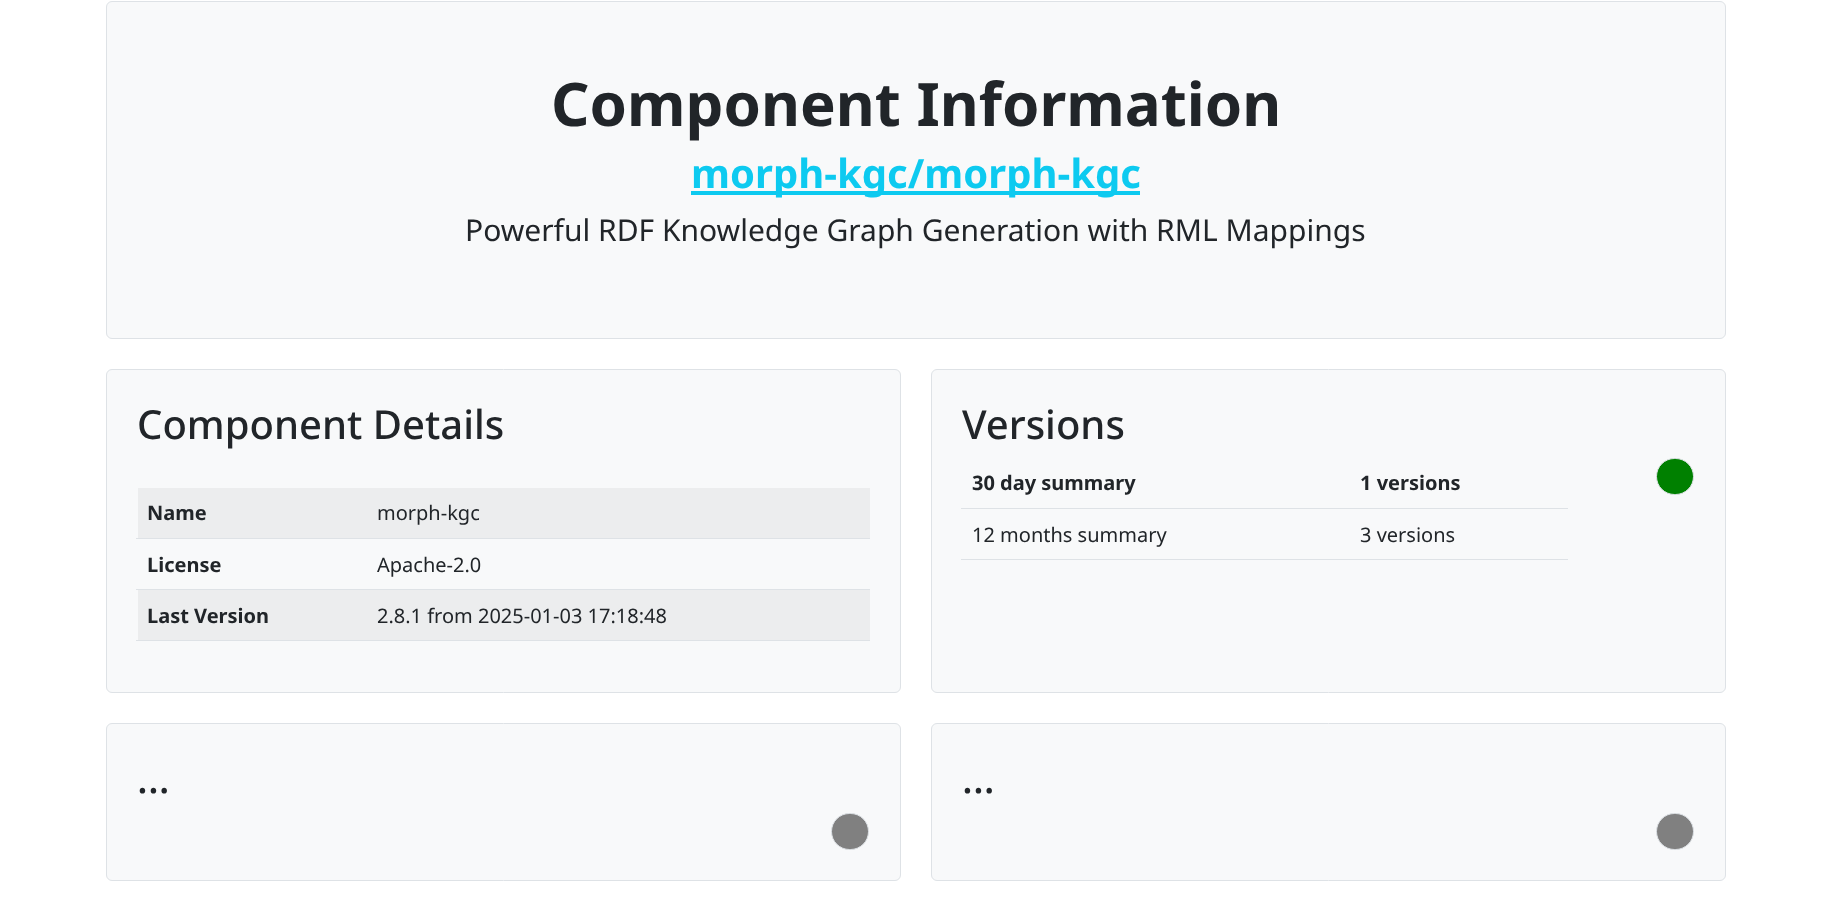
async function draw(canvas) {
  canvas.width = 1831;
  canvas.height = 910;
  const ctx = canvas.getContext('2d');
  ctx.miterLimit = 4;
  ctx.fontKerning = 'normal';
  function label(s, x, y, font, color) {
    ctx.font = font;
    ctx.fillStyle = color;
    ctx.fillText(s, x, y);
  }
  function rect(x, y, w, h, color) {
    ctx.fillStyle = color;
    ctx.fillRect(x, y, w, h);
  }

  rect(0, 0, 1831, 910, '#fff');
  ctx.fillStyle = '#f8f9fa';
  ctx.beginPath();
  ctx.roundRect(106.5, 1.5, 1619, 337, 5.5);
  ctx.fill();
  ctx.strokeStyle = '#dee2e6';
  ctx.stroke();
  label('Component Information', 551, 126, 'bold 60px Noto Sans', '#212529');
  rect(691, 191, 449, 4, '#0dcaf0');
  label('morph-kgc/morph-kgc', 691, 188, 'bold 40px Noto Sans', '#0dcaf0');
  label('Powerful RDF Knowledge Graph Generation with RML Mappings', 465, 241, '30px Noto Sans', '#212529');
  ctx.fillStyle = '#f8f9fa';
  ctx.beginPath();
  ctx.roundRect(106.5, 369.5, 794, 323, 5.5);
  ctx.fill();
  ctx.stroke();
  label('Component Details', 137, 439, '500 40px Noto Sans', '#212529');
  rect(138, 488, 732, 50, '#ecedee');
  label('Name', 147, 520, 'bold 20px Noto Sans', '#212529');
  rect(136, 538, 734, 1, '#dee2e6');
  label('morph-kgc', 377, 520, '20px Noto Sans', '#212529');
  label('License', 147, 572, 'bold 20px Noto Sans', '#212529');
  rect(136, 589, 734, 1, '#dee2e6');
  label('Apache-2.0', 377, 572, '20px Noto Sans', '#212529');
  rect(138, 590, 732, 50, '#ecedee');
  label('Last Version', 147, 623, 'bold 20px Noto Sans', '#212529');
  rect(136, 640, 734, 1, '#dee2e6');
  label('2.8.1 from 2025-01-03 17:18:48', 377, 623, '20px Noto Sans', '#212529');
  ctx.fillStyle = '#f8f9fa';
  ctx.beginPath();
  ctx.roundRect(931.5, 369.5, 794, 323, 5.5);
  ctx.fill();
  ctx.stroke();
  label('Versions', 962, 439, '500 40px Noto Sans', '#212529');
  label('30 day summary', 972, 490, 'bold 20px Noto Sans', '#212529');
  rect(961, 508, 607, 1, '#dee2e6');
  label('1 versions', 1360, 490, 'bold 20px Noto Sans', '#212529');
  label('12 months summary', 972, 542, '20px Noto Sans', '#212529');
  rect(961, 559, 607, 1, '#dee2e6');
  label('3 versions', 1360, 542, '20px Noto Sans', '#212529');
  ctx.fillStyle = '#008000';
  ctx.beginPath();
  ctx.roundRect(1656.5, 458.5, 37, 36, 18);
  ctx.fill();
  ctx.stroke();
  ctx.fillStyle = '#f8f9fa';
  ctx.beginPath();
  ctx.roundRect(106.5, 723.5, 794, 157, 5.5);
  ctx.fill();
  ctx.stroke();
  label('...', 137, 793, '500 40px Noto Sans', '#212529');
  ctx.fillStyle = '#808080';
  ctx.beginPath();
  ctx.roundRect(831.5, 813.5, 37, 36, 18);
  ctx.fill();
  ctx.stroke();
  ctx.fillStyle = '#f8f9fa';
  ctx.beginPath();
  ctx.roundRect(931.5, 723.5, 794, 157, 5.5);
  ctx.fill();
  ctx.stroke();
  label('...', 962, 793, '500 40px Noto Sans', '#212529');
  ctx.fillStyle = '#808080';
  ctx.beginPath();
  ctx.roundRect(1656.5, 813.5, 37, 36, 18);
  ctx.fill();
  ctx.stroke();
}

draw(document.querySelector('canvas'));
